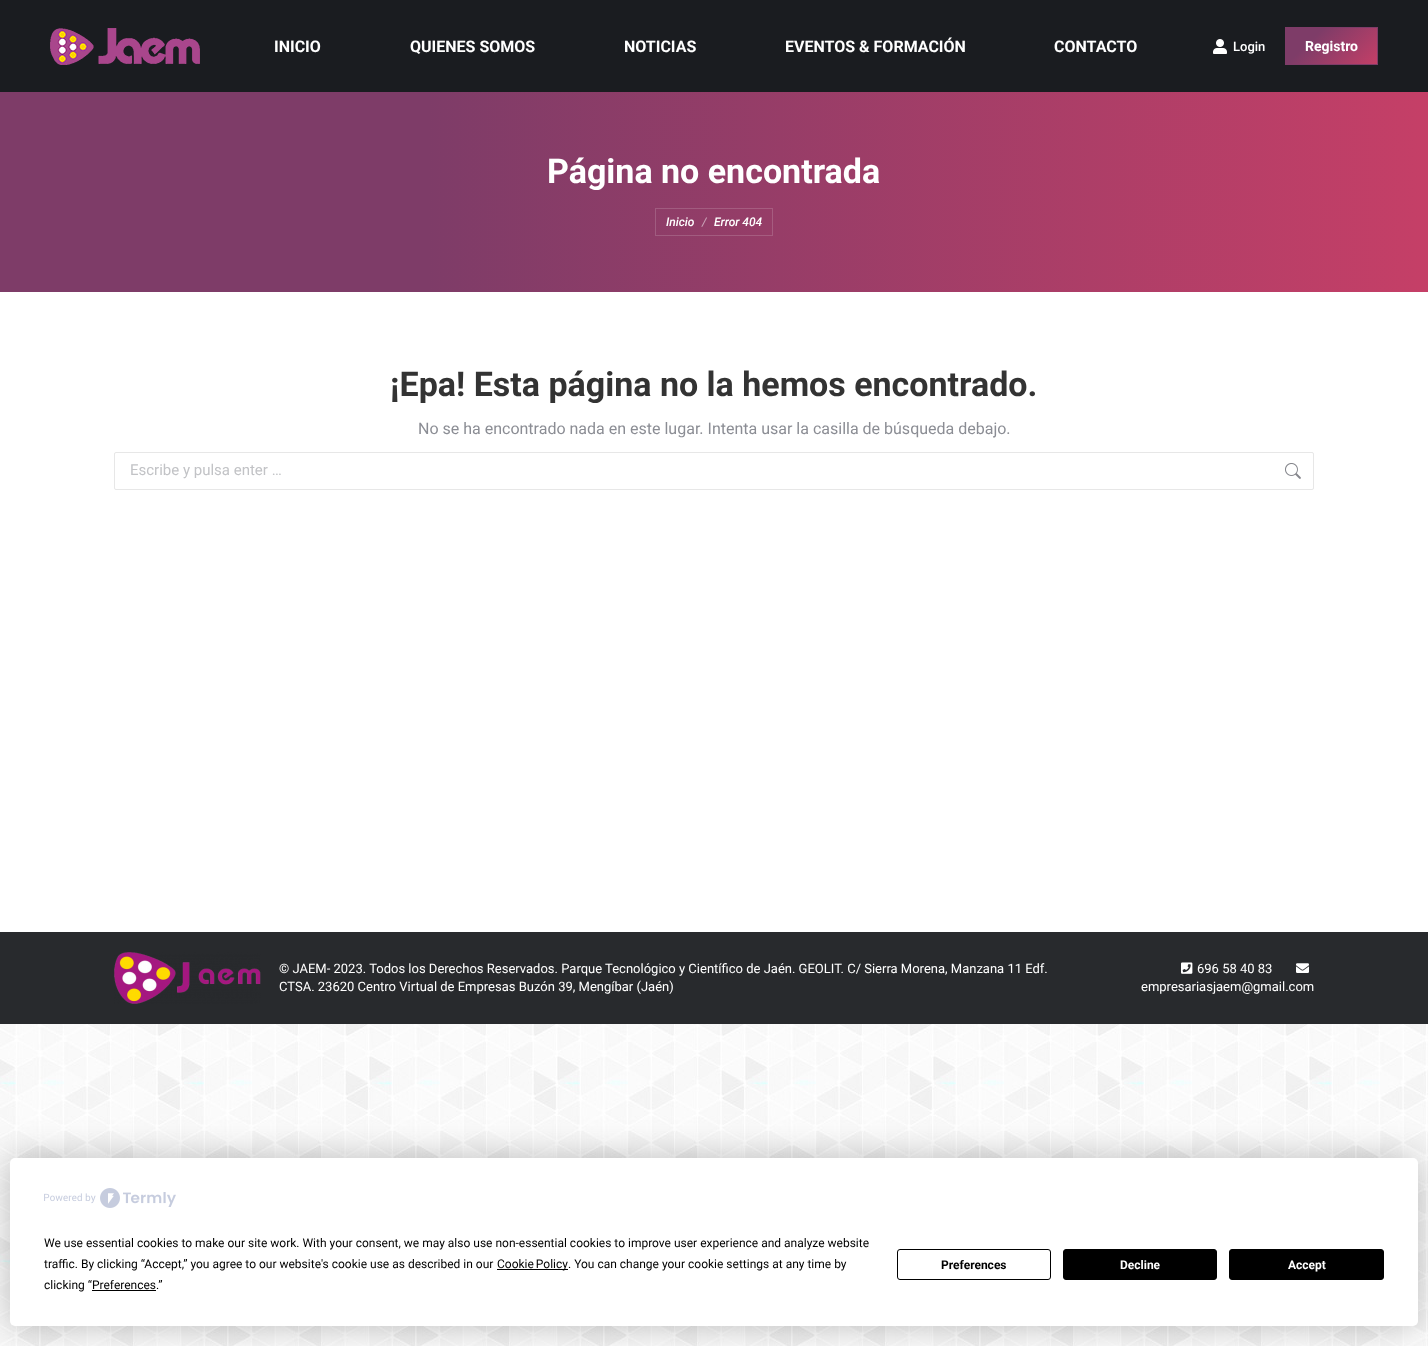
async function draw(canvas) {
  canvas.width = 1428;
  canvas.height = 1346;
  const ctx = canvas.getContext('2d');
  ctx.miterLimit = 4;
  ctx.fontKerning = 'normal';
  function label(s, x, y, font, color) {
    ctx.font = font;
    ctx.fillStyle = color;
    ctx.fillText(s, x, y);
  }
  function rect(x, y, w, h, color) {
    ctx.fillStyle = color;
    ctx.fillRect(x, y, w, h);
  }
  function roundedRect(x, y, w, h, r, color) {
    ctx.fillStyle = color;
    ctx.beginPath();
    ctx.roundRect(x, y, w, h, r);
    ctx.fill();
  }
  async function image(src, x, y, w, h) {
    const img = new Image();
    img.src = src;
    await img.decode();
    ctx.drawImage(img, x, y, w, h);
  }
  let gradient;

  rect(0, 0, 1428, 1346, '#fff');
  await image('assets/img1.png', 0, 1024, 1428, 322);
  rect(0, 0, 1428, 92, '#1a1c20');
  await image('assets/img2.png', 50, 28, 150, 37);
  label('INICIO', 274, 52, 'bold 16px Roboto', '#fff');
  label('QUIENES SOMOS', 410, 52, 'bold 16px Roboto', '#fff');
  label('NOTICIAS', 624, 52, 'bold 16px Roboto', '#fff');
  label('EVENTOS & FORMACIÓN', 785, 52, 'bold 16px Roboto', '#fff');
  label('CONTACTO', 1054, 52, 'bold 16px Roboto', '#fff');
  await image('assets/img3.png', 1213, 39, 14, 15);
  label('Login', 1233, 51, '500 13px Roboto', '#fff');
  gradient = ctx.createLinearGradient(1299, 13, 1364, 79);
  gradient.addColorStop(0.3, '#7e3c68');
  gradient.addColorStop(1, '#c53f67');
  ctx.fillStyle = gradient;
  ctx.fillRect(1286, 28, 91, 36);
  ctx.strokeStyle = '#7e3c68';
  ctx.strokeRect(1285.5, 27.5, 92, 37);
  label('Registro', 1305, 51, 'bold 14px Roboto', '#fff');
  gradient = ctx.createLinearGradient(0, 192, 1428, 192);
  gradient.addColorStop(0.3, '#7e3c68');
  gradient.addColorStop(1, '#c53f67');
  ctx.fillStyle = gradient;
  ctx.fillRect(0, 92, 1428, 200);
  label('Página no encontrada', 547, 183, 'bold 34px Roboto', '#fff');
  ctx.strokeStyle = '#ffffff29';
  ctx.strokeRect(655.5, 208.5, 117, 27);
  label('Inicio', 666, 226, 'italic 500 12px Roboto', '#fff');
  label('/', 702, 226, 'italic 500 12px Roboto', '#c89eb4');
  label('Error 404', 714, 226, 'italic 500 12px Roboto', '#fff');
  label('¡Epa! Esta página no la hemos encontrado.', 390, 396, 'bold 34px Roboto', '#333');
  label('No se ha encontrado nada en este lugar. Intenta usar la casilla de búsqueda debajo.', 418, 434, '16px Roboto', '#8b8d94');
  ctx.beginPath();
  ctx.roundRect(114.5, 452.5, 1199, 37, 1.5);
  ctx.strokeStyle = '#e7e7e7';
  ctx.stroke();
  label('Escribe y pulsa enter …', 130, 475, '15px Roboto', '#c2c3c6');
  await image('assets/img4.png', 1285, 463, 16, 16);
  rect(0, 932, 1428, 92, '#282a2d');
  await image('assets/img5.png', 114, 952, 147, 52);
  label('© JAEM- 2023. Todos los Derechos Reservados. Parque Tecnológico y Científico de Jaén. GEOLIT. C/ Sierra Morena, Manzana 11 Edf.', 279, 973, '13px Roboto', '#fff');
  label('CTSA. 23620 Centro Virtual de Empresas Buzón 39, Mengíbar (Jaén)', 279, 991, '13px Roboto', '#fff');
  await image('assets/img6.png', 1181, 962, 12, 12);
  label('696 58 40 83', 1197, 973, '13px Roboto', '#fff');
  await image('assets/img7.png', 1296, 963, 13, 10);
  label('empresariasjaem@gmail.com', 1141, 991, '13px Roboto', '#fff');
  ctx.fillStyle = '#00000040';
  ctx.filter = 'blur(17.5px)';
  ctx.beginPath();
  ctx.roundRect(10, 1158, 1408, 168, 5);
  ctx.fill();
  ctx.filter = 'none';
  roundedRect(10, 1158, 1408, 168, 5, '#fff');
  await image('assets/img8.png', 44, 1188, 132, 20);
  label('We use essential cookies to make our site work. With your consent, we may also use non-essential cookies to improve user experience and analyze website', 44, 1247, '12px Roboto', '#000');
  label('traffic. By clicking “Accept,” you agree to our website\'s cookie use as described in our', 44, 1268, '12px Roboto', '#000');
  rect(497, 1269, 71, 1, '#000');
  ctx.wordSpacing = '-1px';
  label('Cookie Policy', 497, 1268, '12px Roboto', '#000');
  ctx.wordSpacing = '0px';
  label('. You can change your cookie settings at any time by', 568, 1268, '12px Roboto', '#000');
  label('clicking “Preferences.”', 44, 1289, '12px Roboto', '#000');
  rect(92, 1290, 64, 1, '#000');
  ctx.beginPath();
  ctx.roundRect(897.5, 1249.5, 153, 30, 2.5);
  ctx.strokeStyle = '#000';
  ctx.stroke();
  label('Preferences', 941, 1269, 'bold 12px Roboto', '#000');
  ctx.beginPath();
  ctx.roundRect(1063.5, 1249.5, 153, 30, 2.5);
  ctx.fill();
  ctx.stroke();
  label('Decline', 1120, 1269, 'bold 12px Roboto', '#fff');
  ctx.fillStyle = '#000';
  ctx.beginPath();
  ctx.roundRect(1229.5, 1249.5, 154, 30, 2.5);
  ctx.fill();
  ctx.stroke();
  label('Accept', 1288, 1269, 'bold 12px Roboto', '#fff');
}

draw(document.querySelector('canvas'));
